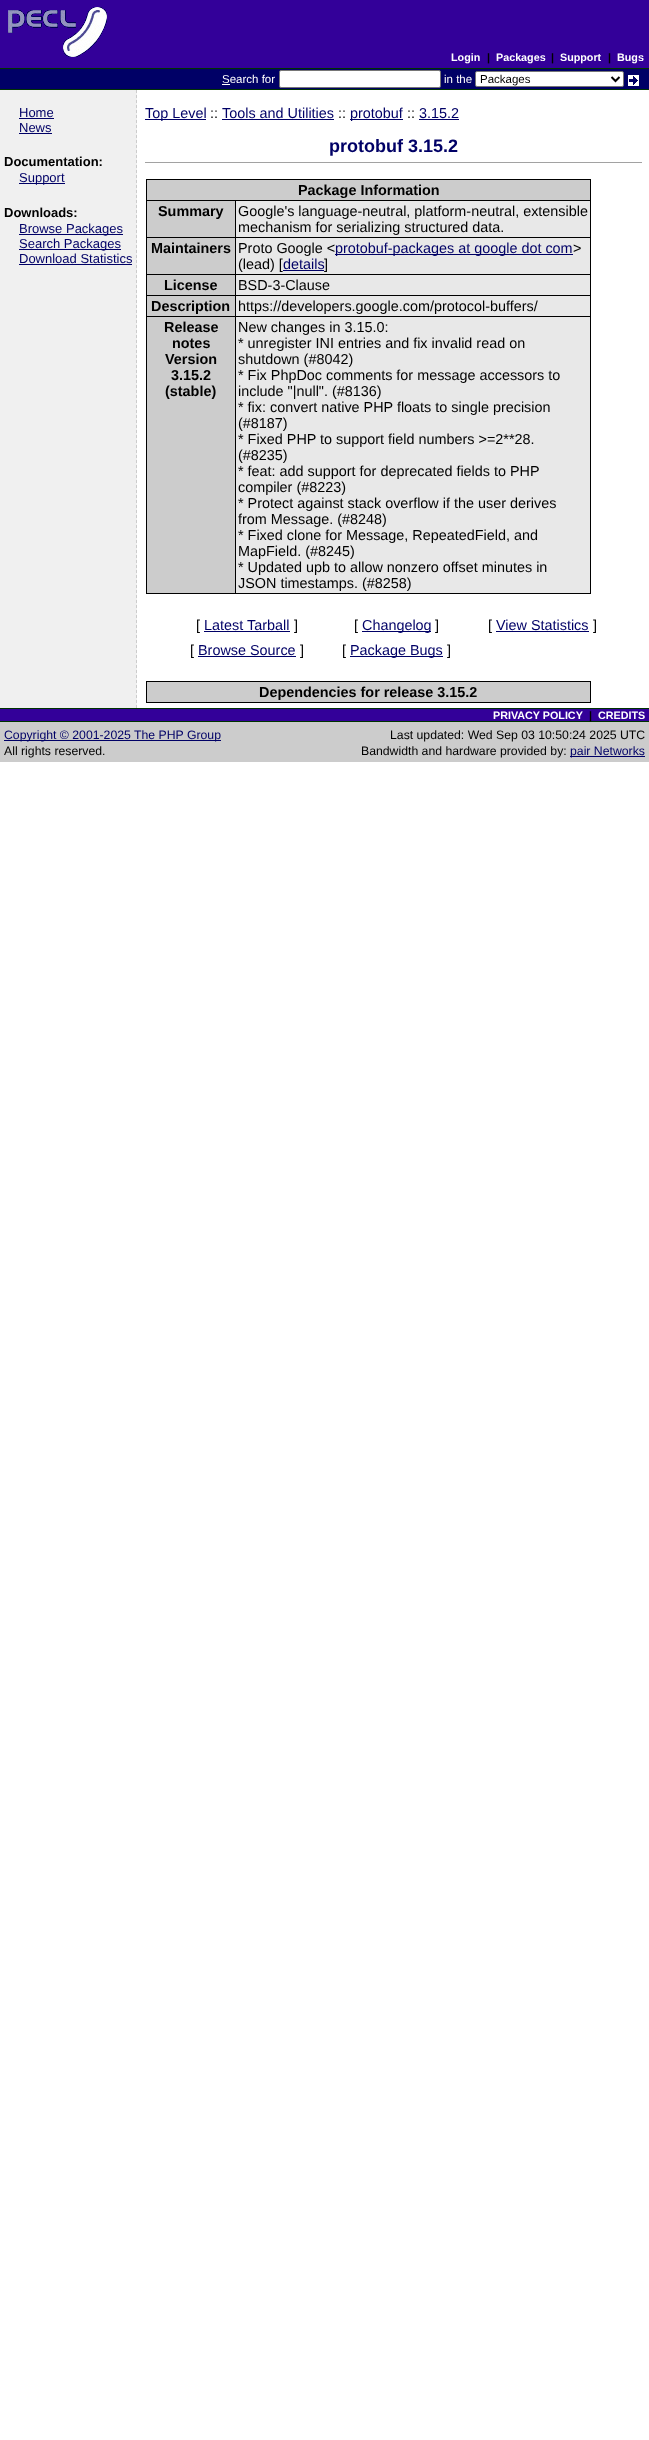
async function draw(canvas) {
  canvas.width = 649;
  canvas.height = 2440;
  const ctx = canvas.getContext('2d');
  ctx.miterLimit = 4;
  ctx.fontKerning = 'normal';
  function label(s, x, y, font, color) {
    ctx.font = font;
    ctx.fillStyle = color;
    ctx.fillText(s, x, y);
  }
  function rect(x, y, w, h, color) {
    ctx.fillStyle = color;
    ctx.fillRect(x, y, w, h);
  }
  async function image(src, x, y, w, h) {
    const img = new Image();
    img.src = src;
    await img.decode();
    ctx.drawImage(img, x, y, w, h);
  }
  let path;

  rect(0, 0, 649, 2440, '#fff');
  rect(0, 0, 649, 68, '#309');
  await image('assets/img1.png', 8, 7, 99, 50);
  label('Login', 451, 61, 'bold 10.75px Liberation Sans', '#fff');
  label('|', 487, 61, 'bold 10.75px Liberation Sans', '#000');
  label('Packages', 496, 61, 'bold 10.75px Liberation Sans', '#fff');
  label('|', 551, 61, 'bold 10.75px Liberation Sans', '#000');
  label('Support', 560, 61, 'bold 10.75px Liberation Sans', '#fff');
  label('|', 608, 61, 'bold 10.75px Liberation Sans', '#000');
  label('Bugs', 617, 61, 'bold 10.75px Liberation Sans', '#fff');
  rect(0, 69, 649, 20, '#006');
  rect(0, 68, 649, 1, '#030');
  rect(0, 89, 649, 1, '#030');
  label('Search for', 222, 83, '11.5px Liberation Sans', '#fff');
  rect(222, 84, 8, 1, '#fff');
  ctx.beginPath();
  ctx.roundRect(279.5, 70.5, 161, 17, 1.5);
  ctx.fill();
  ctx.strokeStyle = '#767676';
  ctx.stroke();
  label('in the', 444, 83, '11.5px Liberation Sans', '#fff');
  ctx.beginPath();
  ctx.roundRect(475.5, 71.5, 148, 15, 1.5);
  ctx.fill();
  ctx.stroke();
  path = new Path2D('M611.5 77L615.5 81L619.5 77');
  ctx.strokeStyle = '#000';
  ctx.lineWidth = 2;
  ctx.stroke(path);
  label('Packages', 480, 83, '11.5px Liberation Sans', '#000');
  await image('assets/img2.png', 628, 75, 11, 11);
  rect(0, 90, 137, 618, '#f0f0f0');
  path = new Path2D('M136.5 90V708');
  ctx.strokeStyle = '#ccc';
  ctx.lineWidth = 1;
  ctx.setLineDash([3, 2]);
  ctx.stroke(path);
  label('Home', 19, 117, '13px Liberation Sans', '#006');
  rect(19, 118, 35, 1, '#006');
  label('News', 19, 132, '13px Liberation Sans', '#006');
  rect(19, 133, 33, 1, '#006');
  label('Documentation:', 4, 166, 'bold 13px Liberation Sans', '#000');
  rect(19, 183, 46, 1, '#006');
  label('Support', 19, 182, '13px Liberation Sans', '#006');
  label('Downloads:', 4, 217, 'bold 13px Liberation Sans', '#000');
  rect(19, 234, 104, 1, '#006');
  label('Browse Packages', 19, 233, '13px Liberation Sans', '#006');
  rect(19, 249, 102, 1, '#006');
  label('Search Packages', 19, 248, '13px Liberation Sans', '#006');
  label('Download Statistics', 19, 263, '13px Liberation Sans', '#006');
  rect(19, 264, 113, 1, '#006');
  rect(145, 119, 61, 1, '#006');
  label('Top Level', 145, 118, '14.4px Liberation Sans', '#006');
  label('::', 210, 118, '14.4px Liberation Sans', '#000');
  label('Tools and Utilities', 222, 118, '14.4px Liberation Sans', '#006');
  rect(222, 119, 112, 1, '#006');
  label('::', 338, 118, '14.4px Liberation Sans', '#000');
  rect(350, 119, 53, 1, '#006');
  label('protobuf', 350, 118, '14.4px Liberation Sans', '#006');
  label('::', 407, 118, '14.4px Liberation Sans', '#000');
  label('3.15.2', 419, 118, '14.4px Liberation Sans', '#006');
  rect(419, 119, 40, 1, '#006');
  rect(145, 162, 497, 1, '#a2a2a2');
  label('protobuf 3.15.2', 329, 152, 'bold 18px Liberation Sans', '#006');
  rect(146, 179, 445, 415, '#000');
  rect(147, 180, 443, 20, '#ccc');
  label('Package Information', 298, 195, 'bold 14.4px Liberation Sans', '#000');
  rect(147, 201, 88, 36, '#ccc');
  label('Summary', 158, 216, 'bold 14.4px Liberation Sans', '#000');
  rect(236, 201, 354, 36, '#e8e8e8');
  label('Google\'s language-neutral, platform-neutral, extensible', 238, 216, '14.4px Liberation Sans', '#000');
  label('mechanism for serializing structured data.', 238, 232, '14.4px Liberation Sans', '#000');
  rect(147, 238, 88, 36, '#ccc');
  label('Maintainers', 151, 253, 'bold 14.4px Liberation Sans', '#000');
  rect(236, 238, 354, 36, '#e8e8e8');
  label('Proto Google <', 238, 253, '14.4px Liberation Sans', '#000');
  rect(335, 254, 238, 1, '#006');
  label('protobuf-packages at google dot com', 335, 253, '14.4px Liberation Sans', '#006');
  label('>', 573, 253, '14.4px Liberation Sans', '#000');
  label('(lead) [', 238, 269, '14.4px Liberation Sans', '#000');
  label('details', 283, 269, '14.4px Liberation Sans', '#006');
  rect(283, 270, 41, 1, '#006');
  label(']', 324, 269, '14.4px Liberation Sans', '#000');
  rect(147, 275, 88, 20, '#ccc');
  label('License', 164, 290, 'bold 14.4px Liberation Sans', '#000');
  rect(236, 275, 354, 20, '#e8e8e8');
  label('BSD-3-Clause', 238, 290, '14.4px Liberation Sans', '#000');
  rect(147, 296, 88, 20, '#ccc');
  label('Description', 151, 311, 'bold 14.4px Liberation Sans', '#000');
  rect(236, 296, 354, 20, '#e8e8e8');
  label('https://developers.google.com/protocol-buffers/', 238, 311, '14.4px Liberation Sans', '#000');
  rect(147, 317, 88, 276, '#ccc');
  label('Release', 164, 332, 'bold 14.4px Liberation Sans', '#000');
  label('notes', 172, 348, 'bold 14.4px Liberation Sans', '#000');
  label('Version', 165, 364, 'bold 14.4px Liberation Sans', '#000');
  label('3.15.2', 171, 380, 'bold 14.4px Liberation Sans', '#000');
  label('(stable)', 165, 396, 'bold 14.4px Liberation Sans', '#000');
  rect(236, 317, 354, 276, '#e8e8e8');
  label('New changes in 3.15.0:', 238, 332, '14.4px Liberation Sans', '#000');
  label('* unregister INI entries and fix invalid read on', 238, 348, '14.4px Liberation Sans', '#000');
  label('shutdown (#8042)', 238, 364, '14.4px Liberation Sans', '#000');
  label('* Fix PhpDoc comments for message accessors to', 238, 380, '14.4px Liberation Sans', '#000');
  label('include "|null". (#8136)', 238, 396, '14.4px Liberation Sans', '#000');
  label('* fix: convert native PHP floats to single precision', 238, 412, '14.4px Liberation Sans', '#000');
  label('(#8187)', 238, 428, '14.4px Liberation Sans', '#000');
  label('* Fixed PHP to support field numbers >=2**28.', 238, 444, '14.4px Liberation Sans', '#000');
  label('(#8235)', 238, 460, '14.4px Liberation Sans', '#000');
  label('* feat: add support for deprecated fields to PHP', 238, 476, '14.4px Liberation Sans', '#000');
  label('compiler (#8223)', 238, 492, '14.4px Liberation Sans', '#000');
  label('* Protect against stack overflow if the user derives', 238, 508, '14.4px Liberation Sans', '#000');
  label('from Message. (#8248)', 238, 524, '14.4px Liberation Sans', '#000');
  label('* Fixed clone for Message, RepeatedField, and', 238, 540, '14.4px Liberation Sans', '#000');
  label('MapField. (#8245)', 238, 556, '14.4px Liberation Sans', '#000');
  label('* Updated upb to allow nonzero offset minutes in', 238, 572, '14.4px Liberation Sans', '#000');
  label('JSON timestamps. (#8258)', 238, 588, '14.4px Liberation Sans', '#000');
  label('[', 196, 630, '14.4px Liberation Sans', '#000');
  label('Latest Tarball', 204, 630, '14.4px Liberation Sans', '#006');
  rect(204, 631, 86, 1, '#006');
  label(']', 294, 630, '14.4px Liberation Sans', '#000');
  label('[', 354, 630, '14.4px Liberation Sans', '#000');
  rect(362, 631, 69, 1, '#006');
  label('Changelog', 362, 630, '14.4px Liberation Sans', '#006');
  label(']', 435, 630, '14.4px Liberation Sans', '#000');
  label('[', 488, 630, '14.4px Liberation Sans', '#000');
  label('View Statistics', 496, 630, '14.4px Liberation Sans', '#006');
  rect(496, 631, 93, 1, '#006');
  label(']', 593, 630, '14.4px Liberation Sans', '#000');
  label('[', 190, 655, '14.4px Liberation Sans', '#000');
  label('Browse Source', 198, 655, '14.4px Liberation Sans', '#006');
  rect(198, 656, 98, 1, '#006');
  label(']', 300, 655, '14.4px Liberation Sans', '#000');
  label('[', 342, 655, '14.4px Liberation Sans', '#000');
  rect(350, 656, 93, 1, '#006');
  label('Package Bugs', 350, 655, '14.4px Liberation Sans', '#006');
  label(']', 447, 655, '14.4px Liberation Sans', '#000');
  rect(146, 681, 445, 22, '#000');
  rect(147, 682, 443, 20, '#ccc');
  label('Dependencies for release 3.15.2', 259, 697, 'bold 14.4px Liberation Sans', '#000');
  rect(0, 709, 649, 12, '#309');
  rect(0, 708, 649, 1, '#030');
  rect(0, 721, 649, 1, '#030');
  label('PRIVACY POLICY', 493, 719, 'bold 10.75px Liberation Sans', '#fff');
  label('|', 589, 719, 'bold 10.75px Liberation Sans', '#000');
  label('CREDITS', 598, 719, 'bold 10.75px Liberation Sans', '#fff');
  rect(0, 722, 649, 40, '#ccc');
  rect(4, 740, 217, 1, '#006');
  label('Copyright © 2001-2025 The PHP Group', 4, 739, '12.25px Liberation Sans', '#006');
  label('All rights reserved.', 4, 755, '12.25px Liberation Sans', '#000');
  label('Last updated: Wed Sep 03 10:50:24 2025 UTC', 390, 739, '12.25px Liberation Sans', '#000');
  label('Bandwidth and hardware provided by:', 361, 755, '12.25px Liberation Sans', '#000');
  rect(570, 756, 75, 1, '#006');
  label('pair Networks', 570, 755, '12.25px Liberation Sans', '#006');
}

draw(document.querySelector('canvas'));
